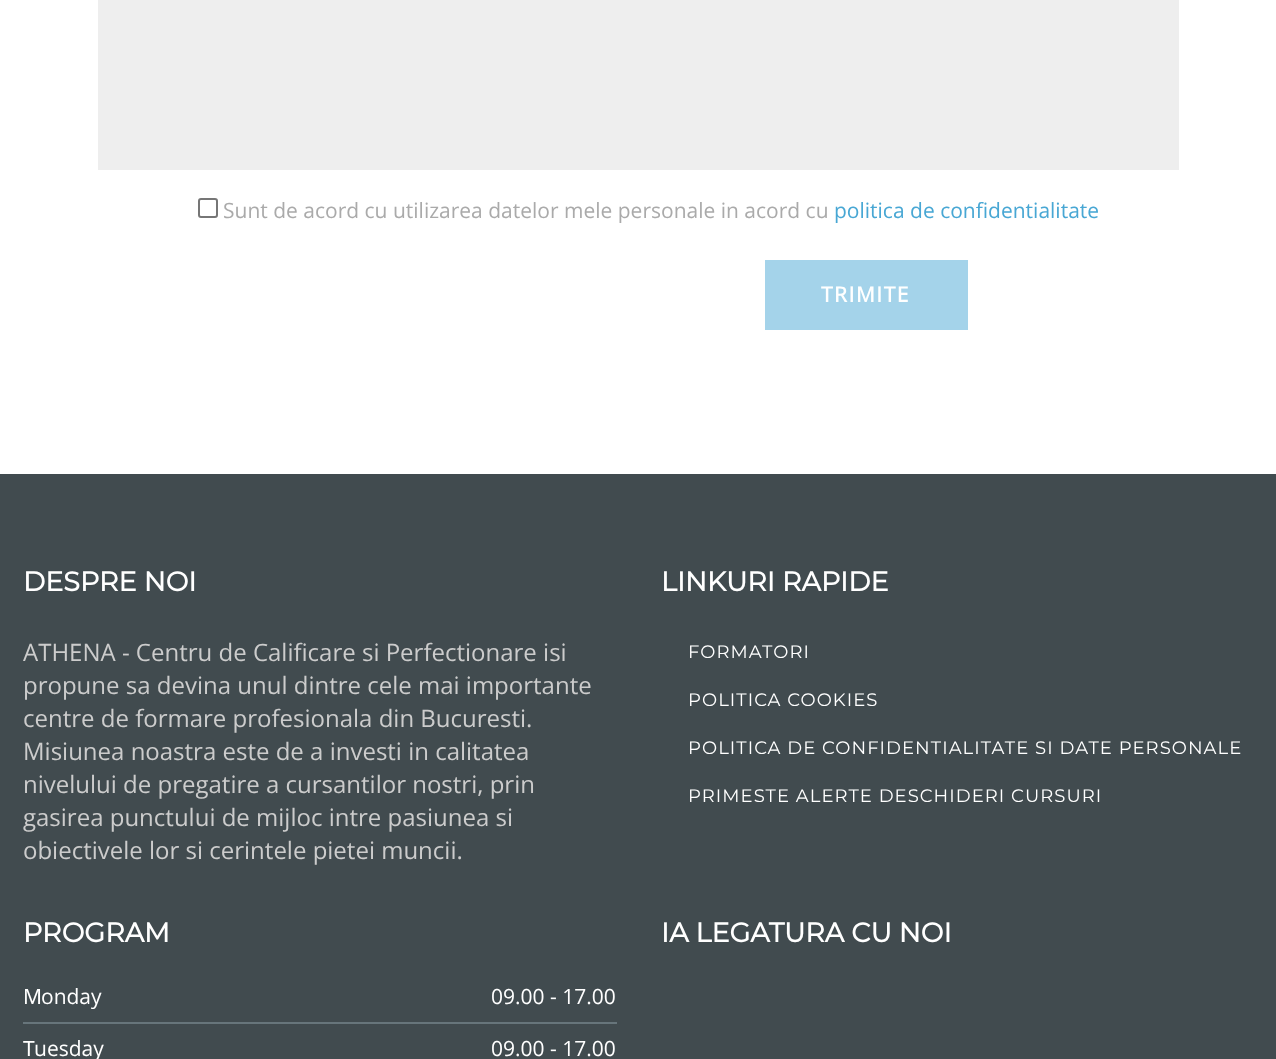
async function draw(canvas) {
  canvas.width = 1276;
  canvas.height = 1059;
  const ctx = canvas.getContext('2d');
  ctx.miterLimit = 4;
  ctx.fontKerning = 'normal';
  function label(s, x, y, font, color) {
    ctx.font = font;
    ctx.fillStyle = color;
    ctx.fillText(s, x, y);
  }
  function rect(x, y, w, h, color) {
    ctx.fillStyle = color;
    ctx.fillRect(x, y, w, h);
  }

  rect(0, 0, 1276, 1059, '#fff');
  rect(98, 0, 1081, 170, '#eee');
  ctx.beginPath();
  ctx.roundRect(199, 199, 18, 18, 2);
  ctx.strokeStyle = '#767676';
  ctx.lineWidth = 2;
  ctx.stroke();
  label('Sunt de acord cu utilizarea datelor mele personale in acord cu', 223, 218, '21px Open Sans', '#aaa');
  label('politica de confidentialitate', 834, 218, '21px Open Sans', '#48a7d4');
  rect(765, 260, 203, 70, '#a4d3ea');
  ctx.letterSpacing = '1.5px';
  label('TRIMITE', 821, 302, 'bold 21px Open Sans', '#fff');
  rect(0, 474, 1276, 585, '#414b4f');
  ctx.letterSpacing = '0px';
  label('DESPRE NOI', 23, 591, 'bold 27px Montserrat', '#fff');
  label('ATHENA - Centru de Calificare si Perfectionare isi', 23, 661, '24px Open Sans', '#ccc');
  label('propune sa devina unul dintre cele mai importante', 23, 694, '24px Open Sans', '#ccc');
  label('centre de formare profesionala din Bucuresti.', 23, 727, '24px Open Sans', '#ccc');
  label('Misiunea noastra este de a investi in calitatea', 23, 760, '24px Open Sans', '#ccc');
  label('nivelului de pregatire a cursantilor nostri, prin', 23, 793, '24px Open Sans', '#ccc');
  label('gasirea punctului de mijloc intre pasiunea si', 23, 826, '24px Open Sans', '#ccc');
  label('obiectivele lor si cerintele pietei muncii.', 23, 859, '24px Open Sans', '#ccc');
  label('LINKURI RAPIDE', 661, 591, 'bold 27px Montserrat', '#fff');
  ctx.letterSpacing = '1.05px';
  label('FORMATORI', 688, 658, '100 18px Montserrat', '#fff');
  label('POLITICA COOKIES', 688, 706, '100 18px Montserrat', '#fff');
  label('POLITICA DE CONFIDENTIALITATE SI DATE PERSONALE', 688, 754, '100 18px Montserrat', '#fff');
  label('PRIMESTE ALERTE DESCHIDERI CURSURI', 688, 802, '100 18px Montserrat', '#fff');
  ctx.letterSpacing = '0px';
  label('PROGRAM', 23, 942, 'bold 27px Montserrat', '#fff');
  rect(23, 1022, 594, 2, '#67757b');
  label('M', 23, 1004, '21px Noto Sans', '#fff');
  label('onday', 41, 1004, '21px Open Sans', '#fff');
  label('09.00 - 17.00', 491, 1004, '21px Open Sans', '#fff');
  label('T', 23, 1056, '21px Noto Sans', '#fff');
  label('uesday', 34, 1056, '21px Open Sans', '#fff');
  label('09.00 - 17.00', 491, 1056, '21px Open Sans', '#fff');
  label('IA LEGATURA CU NOI', 661, 942, 'bold 27px Montserrat', '#fff');
}

draw(document.querySelector('canvas'));
